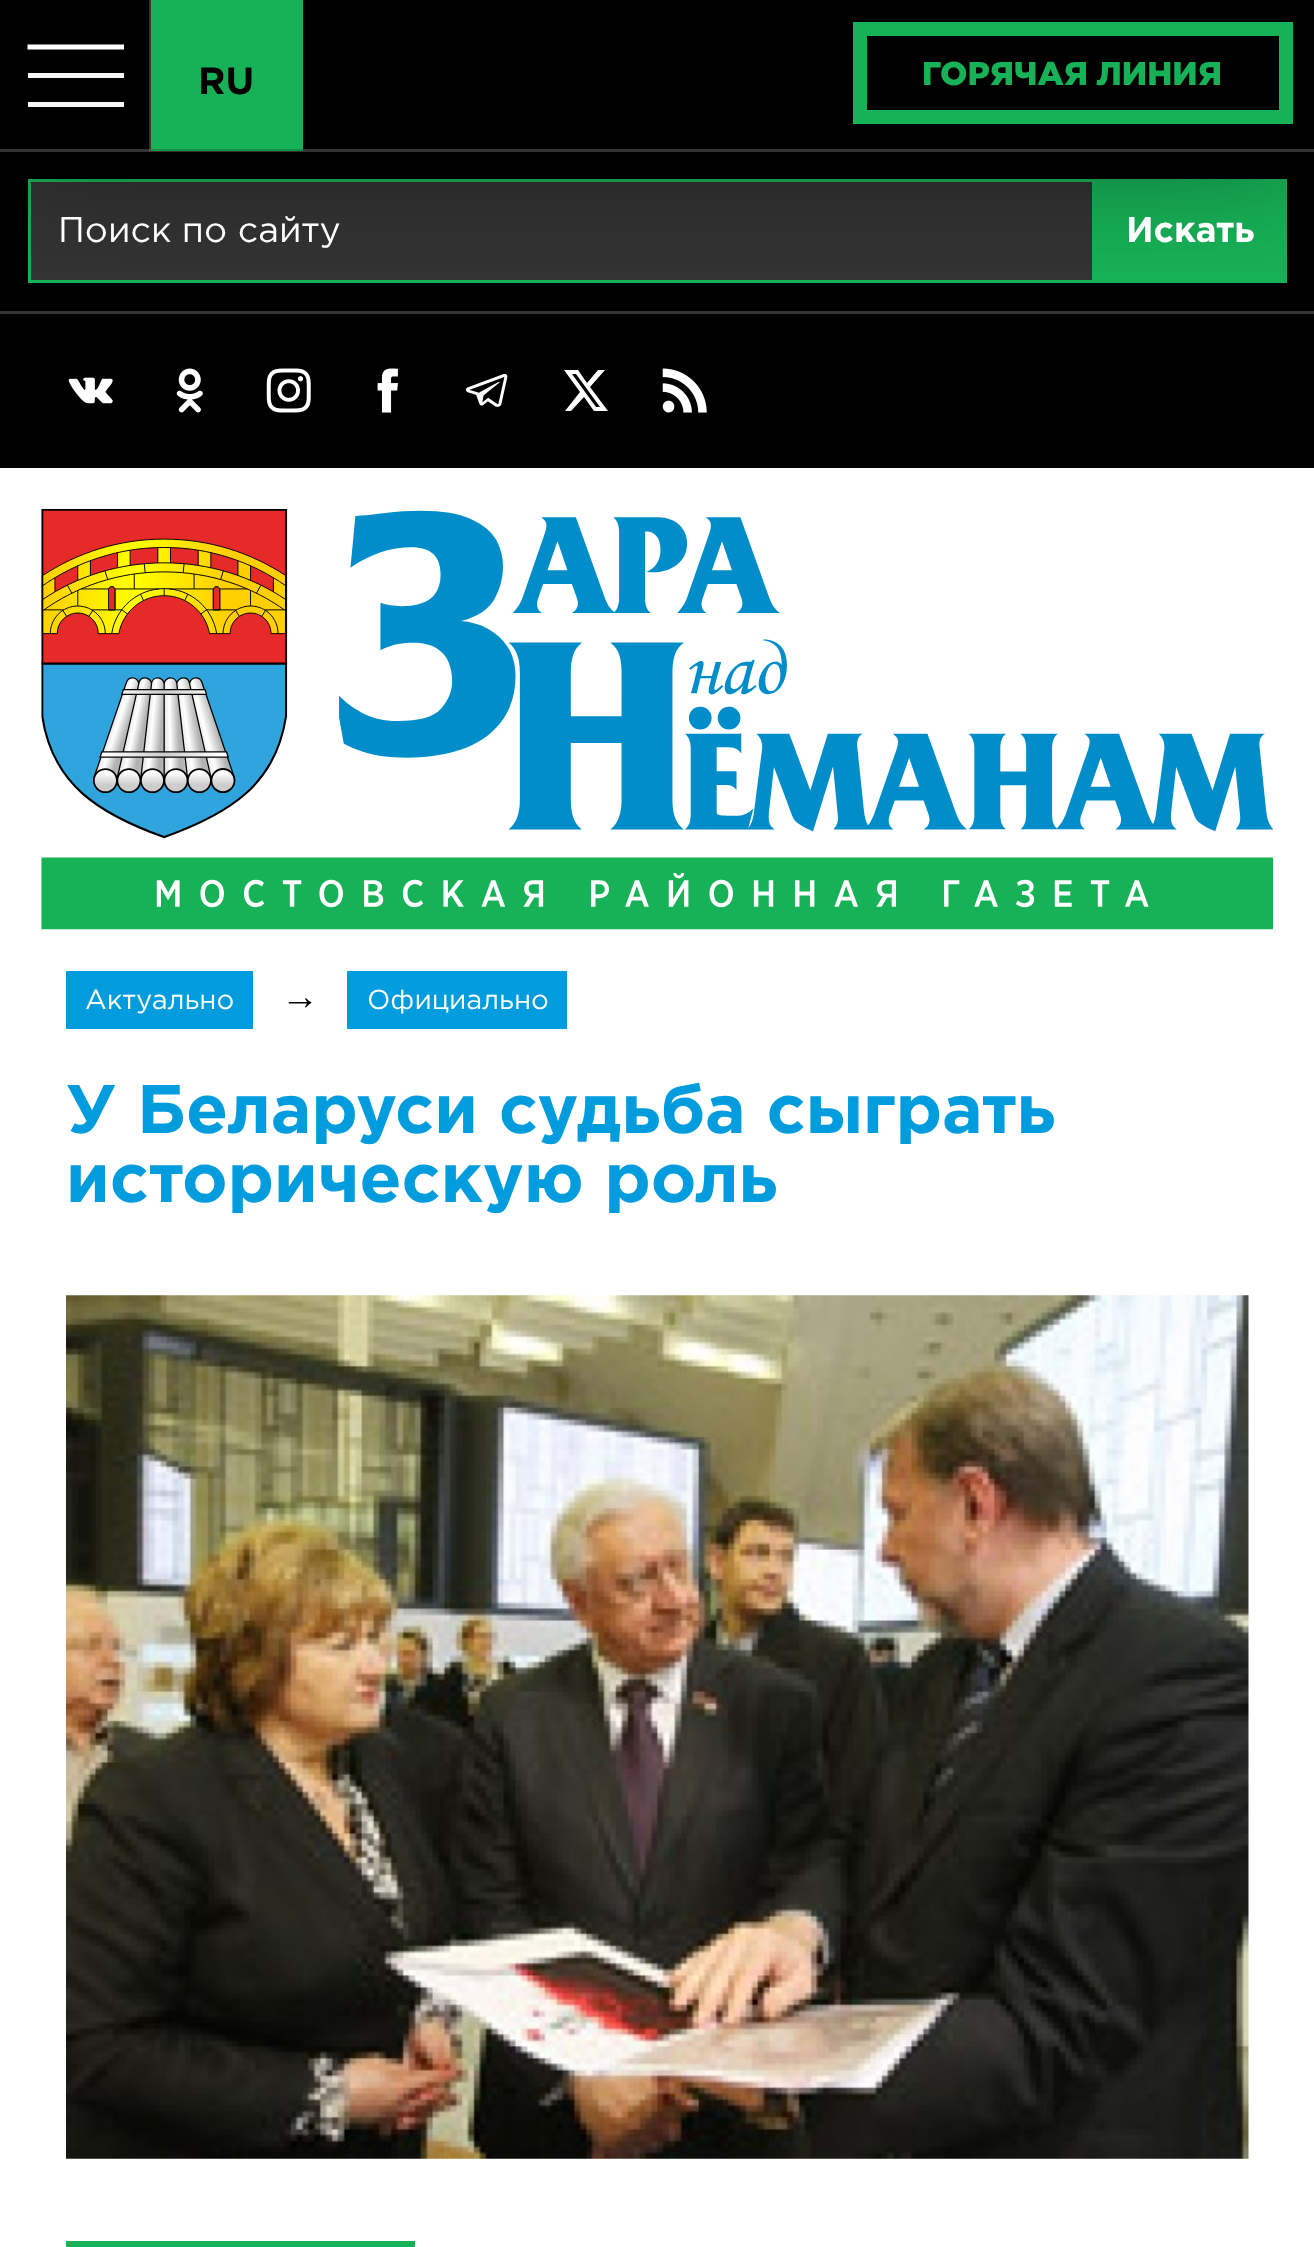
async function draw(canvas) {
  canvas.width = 1314;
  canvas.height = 2247;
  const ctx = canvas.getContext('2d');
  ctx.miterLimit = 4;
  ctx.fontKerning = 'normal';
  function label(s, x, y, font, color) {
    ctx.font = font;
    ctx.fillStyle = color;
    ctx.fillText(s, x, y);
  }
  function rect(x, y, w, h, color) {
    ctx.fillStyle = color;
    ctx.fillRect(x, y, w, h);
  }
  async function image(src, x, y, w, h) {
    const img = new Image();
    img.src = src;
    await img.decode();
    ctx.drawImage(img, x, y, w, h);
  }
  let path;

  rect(0, 0, 1314, 2247, '#fff');
  rect(0, 0, 1314, 468, '#000');
  rect(149, 0, 2, 151, '#333');
  rect(0, 311, 1314, 3, '#333');
  ctx.beginPath();
  ctx.rect(29.5, 180.5, 1064, 101);
  ctx.fill();
  ctx.strokeStyle = '#17b257';
  ctx.lineWidth = 3;
  ctx.stroke();
  rect(1095, 179, 192, 104, '#17b257');
  ctx.save();
  ctx.beginPath();
  ctx.rect(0, 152, 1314, 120);
  ctx.clip();
  ctx.fillStyle = '#00000080';
  ctx.filter = 'blur(69px)';
  ctx.beginPath();
  ctx.rect(0, 0, 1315, 151);
  ctx.fill();
  ctx.filter = 'none';
  ctx.restore();
  rect(151, 0, 152, 149, '#17b257');
  rect(0, 149, 1314, 3, '#333');
  rect(149, 149, 3, 2, '#5c5c5c');
  rect(151, 149, 152, 2, '#128e46');
  label('RU', 198, 94, 'bold 38px Gotham', '#000');
  path = new Path2D('M27.5 47H124');
  ctx.strokeStyle = '#fff';
  ctx.lineWidth = 4.8;
  ctx.stroke(path);
  rect(28, 73, 96, 5, '#f5f5f5');
  rect(28, 102, 96, 5, '#f5f5f5');
  ctx.strokeStyle = '#17b257';
  ctx.lineWidth = 14;
  ctx.strokeRect(860, 29, 426, 88);
  label('ГОРЯЧАЯ ЛИНИЯ', 922, 85, '900 33px Gotham', '#17b257');
  label('Поиск по сайту', 58, 242, '35.75px Gotham', '#fff');
  label('Искать', 1126, 242, 'bold 35.75px Gotham', '#fff');
  await image('assets/img1.png', 68, 377, 45, 27);
  await image('assets/img2.png', 176, 368, 27, 45);
  await image('assets/img3.png', 266, 368, 45, 45);
  await image('assets/img4.png', 377, 368, 21, 45);
  await image('assets/img5.png', 465, 374, 43, 33);
  path = new Path2D('M598 370H605L590 387L608 411H594L584 397L571 411H565L580 392L564 370H578L587 383ZM596 407H600L576 374H572Z');
  ctx.fill(path);
  await image('assets/img6.png', 662, 368, 45, 45);
  await image('assets/img7.png', 41, 509, 1232, 421);
  rect(66, 971, 187, 58, '#009cde');
  label('Актуально', 85, 1009, '27.5px Gotham', '#fff');
  label('→', 281, 1009, '38px Liberation Sans', '#000');
  rect(347, 971, 220, 58, '#009cde');
  label('Официально', 367, 1009, '27.5px Gotham', '#fff');
  label('У Беларуси судьба сыграть', 66, 1133, 'bold 68.75px Gotham', '#009cde');
  label('историческую роль', 66, 1202, 'bold 68.75px Gotham', '#009cde');
  await image('assets/img8.png', 66, 1295, 1183, 864);
  rect(66, 2241, 349, 6, '#17b257');
}

draw(document.querySelector('canvas'));
